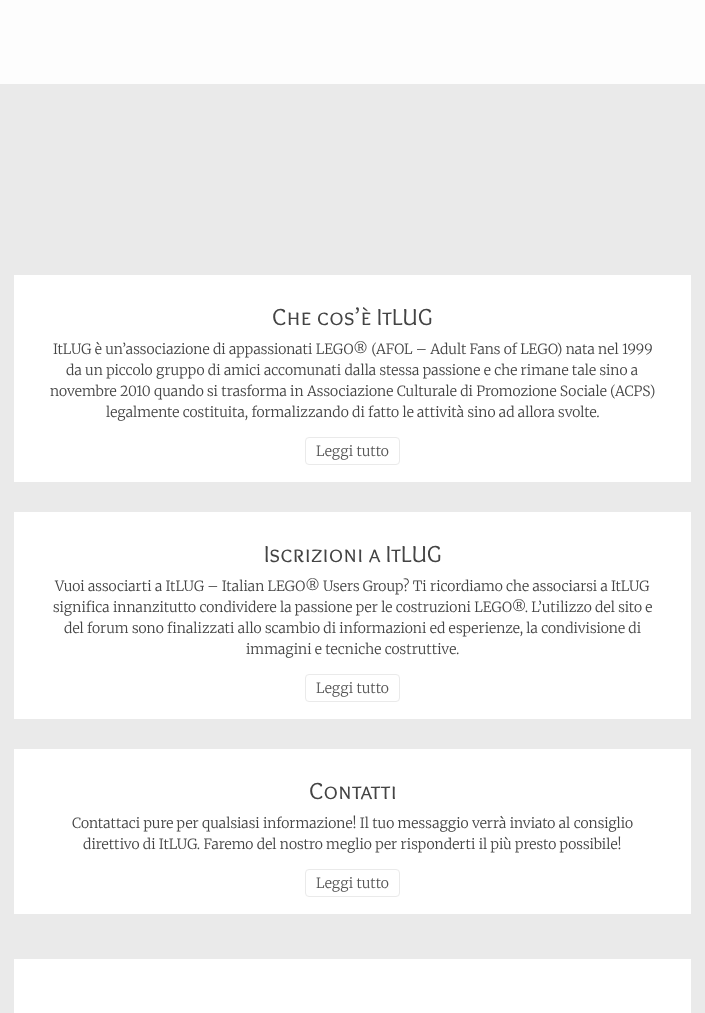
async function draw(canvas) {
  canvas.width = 705;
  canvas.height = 1013;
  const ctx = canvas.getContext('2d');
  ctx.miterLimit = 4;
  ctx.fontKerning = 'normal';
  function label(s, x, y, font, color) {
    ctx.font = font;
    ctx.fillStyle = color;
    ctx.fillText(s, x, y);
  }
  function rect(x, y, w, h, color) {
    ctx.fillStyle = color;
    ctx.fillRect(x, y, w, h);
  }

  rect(0, 0, 705, 1013, '#eaeaea');
  rect(0, 0, 705, 84, '#fdfdfd');
  rect(14, 275, 677, 207, '#fff');
  label('Che cos’è ItLUG', 272, 325, '24px Overlock SC', '#444');
  label('ItLUG è un’associazione di appassionati LEGO® (AFOL – Adult Fans of LEGO) nata nel 1999', 53, 354, '300 14px Merriweather', '#444');
  label('da un piccolo gruppo di amici accomunati dalla stessa passione e che rimane tale sino a', 66, 375, '300 14px Merriweather', '#444');
  label('novembre 2010 quando si trasforma in Associazione Culturale di Promozione Sociale (ACPS)', 50, 396, '300 14px Merriweather', '#444');
  label('legalmente costituita, formalizzando di fatto le attività sino ad allora svolte.', 106, 417, '300 14px Merriweather', '#444');
  ctx.beginPath();
  ctx.roundRect(305.5, 437.5, 94, 27, 3.5);
  ctx.strokeStyle = '#eaeaea';
  ctx.stroke();
  label('Leggi tutto', 316, 456, '300 14px Merriweather', '#555');
  rect(14, 512, 677, 207, '#fff');
  label('Iscrizioni a ItLUG', 264, 562, '24px Overlock SC', '#444');
  label('Vuoi associarti a ItLUG – Italian LEGO® Users Group? Ti ricordiamo che associarsi a ItLUG', 55, 591, '300 14px Merriweather', '#444');
  label('significa innanzitutto condividere la passione per le costruzioni LEGO®. L’utilizzo del sito e', 53, 612, '300 14px Merriweather', '#444');
  label('del forum sono finalizzati allo scambio di informazioni ed esperienze, la condivisione di', 64, 633, '300 14px Merriweather', '#444');
  label('immagini e tecniche costruttive.', 246, 654, '300 14px Merriweather', '#444');
  ctx.beginPath();
  ctx.roundRect(305.5, 674.5, 94, 27, 3.5);
  ctx.stroke();
  label('Leggi tutto', 316, 693, '300 14px Merriweather', '#555');
  rect(14, 749, 677, 165, '#fff');
  label('Contatti', 309, 799, '24px Overlock SC', '#444');
  label('Contattaci pure per qualsiasi informazione! Il tuo messaggio verrà inviato al consiglio', 72, 828, '300 14px Merriweather', '#444');
  label('direttivo di ItLUG. Faremo del nostro meglio per risponderti il più presto possibile!', 83, 849, '300 14px Merriweather', '#444');
  ctx.beginPath();
  ctx.roundRect(305.5, 869.5, 94, 27, 3.5);
  ctx.stroke();
  label('Leggi tutto', 316, 888, '300 14px Merriweather', '#555');
  rect(14, 959, 677, 54, '#fff');
}

draw(document.querySelector('canvas'));
